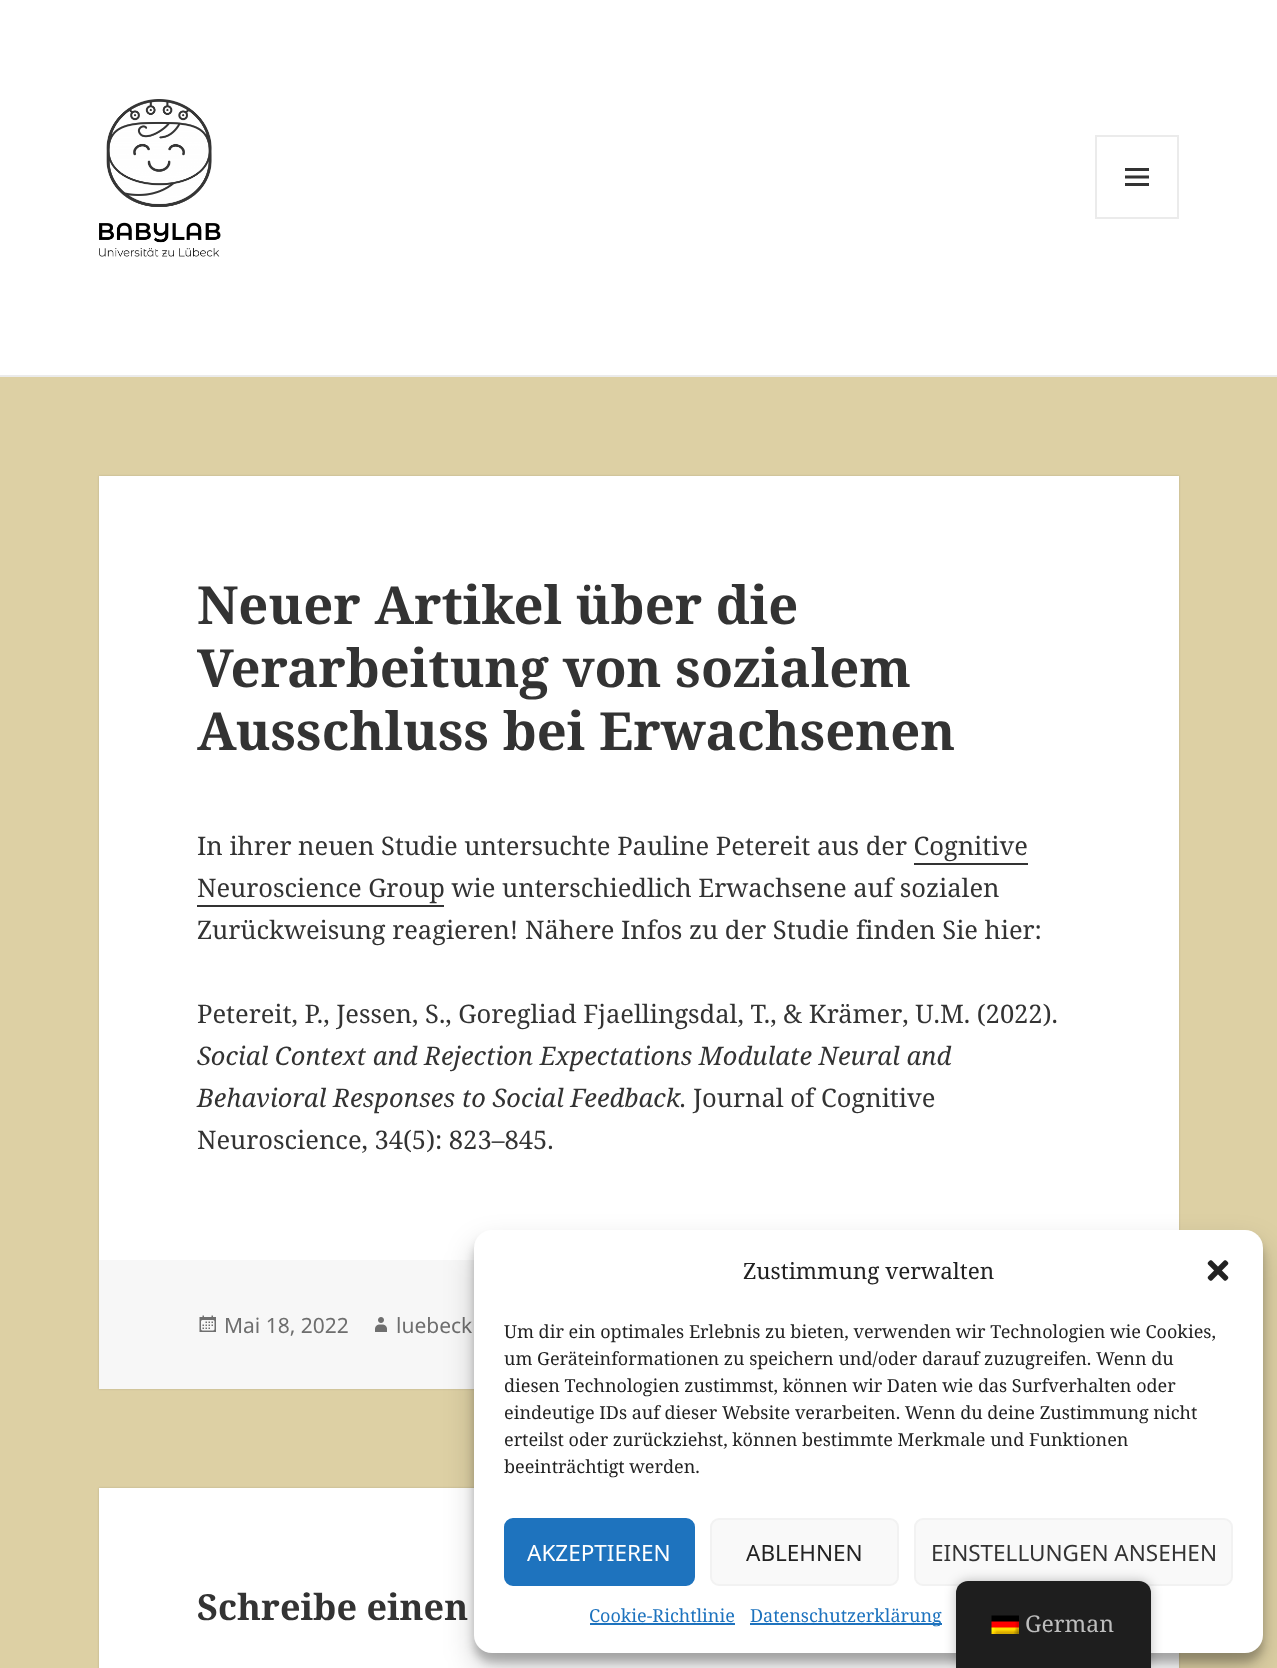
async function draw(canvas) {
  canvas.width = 1277;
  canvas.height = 1668;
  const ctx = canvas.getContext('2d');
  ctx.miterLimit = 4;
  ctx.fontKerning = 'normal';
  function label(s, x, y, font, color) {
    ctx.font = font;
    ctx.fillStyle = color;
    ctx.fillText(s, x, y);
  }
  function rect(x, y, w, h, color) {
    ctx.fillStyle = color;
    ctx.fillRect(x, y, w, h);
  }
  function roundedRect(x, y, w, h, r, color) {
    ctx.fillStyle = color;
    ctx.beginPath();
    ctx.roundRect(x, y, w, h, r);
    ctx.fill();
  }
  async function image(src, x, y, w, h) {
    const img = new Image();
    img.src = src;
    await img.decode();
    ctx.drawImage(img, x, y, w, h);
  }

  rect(0, 0, 1277, 1668, '#ddd0a4');
  rect(0, 0, 1277, 375, '#fff');
  rect(0, 375, 1277, 2, '#ebebeb');
  await image('assets/img1.png', 99, 99, 122, 158);
  ctx.strokeStyle = '#ebebeb';
  ctx.lineWidth = 2;
  ctx.strokeRect(1096, 136, 82, 82);
  await image('assets/img2.png', 1125, 168, 24, 18);
  ctx.fillStyle = '#00000026';
  ctx.filter = 'blur(1px)';
  ctx.beginPath();
  ctx.rect(99, 476, 1080, 913);
  ctx.fill();
  ctx.filter = 'none';
  rect(99, 476, 1080, 784, '#fff');
  label('Neuer Artikel über die', 197, 624, 'bold 52.5px Noto Serif', '#333');
  label('Verarbeitung von sozialem', 197, 687, 'bold 52.5px Noto Serif', '#333');
  label('Ausschluss bei Erwachsenen', 197, 750, 'bold 52.5px Noto Serif', '#333');
  label('In ihrer neuen Studie untersuchte Pauline Petereit aus der Cognitive', 197, 855, '25.5px Noto Serif', '#333');
  label('Neuroscience Group wie unterschiedlich Erwachsene auf sozialen', 197, 897, '25.5px Noto Serif', '#333');
  rect(914, 863, 114, 2, '#333');
  rect(197, 905, 247, 2, '#333');
  label('Zurückweisung reagieren! Nähere Infos zu der Studie finden Sie hier:', 197, 939, '25.5px Noto Serif', '#333');
  label('Petereit, P., Jessen, S., Goregliad Fjaellingsdal, T., & Krämer, U.M. (2022).', 197, 1023, '25.5px Noto Serif', '#333');
  label('Social Context and Rejection Expectations Modulate Neural and', 197, 1065, 'italic 25.5px Noto Serif', '#333');
  label('Behavioral Responses to Social Feedback.', 197, 1107, 'italic 25.5px Noto Serif', '#333');
  label('Journal of Cognitive', 693, 1107, '25.5px Noto Serif', '#333');
  label('Neuroscience, 34(5): 823–845.', 197, 1149, '25.5px Noto Serif', '#333');
  rect(99, 1260, 375, 129, '#f7f7f7');
  await image('assets/img3.png', 199, 1315, 17, 17);
  label('Mai 18, 2022', 224, 1333, '21px Noto Sans', '#6e6e6e');
  await image('assets/img4.png', 375, 1317, 12, 15);
  label('luebeck', 396, 1333, '21px Noto Sans', '#6e6e6e');
  ctx.fillStyle = '#00000026';
  ctx.filter = 'blur(1px)';
  ctx.beginPath();
  ctx.rect(99, 1488, 1080, 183);
  ctx.fill();
  ctx.filter = 'none';
  rect(99, 1488, 1080, 180, '#fff');
  label('Schreibe einen', 197, 1620, 'bold 36px Noto Serif', '#333');
  ctx.fillStyle = '#0000003b';
  ctx.filter = 'blur(4.5px)';
  ctx.beginPath();
  ctx.roundRect(474, 1239, 789, 423, 18);
  ctx.fill();
  ctx.filter = 'none';
  ctx.fillStyle = '#00000030';
  ctx.filter = 'blur(15px)';
  ctx.beginPath();
  ctx.roundRect(474, 1245, 789, 423, 18);
  ctx.fill();
  ctx.filter = 'none';
  roundedRect(474, 1230, 789, 423, 18, '#fff');
  label('Zustimmung verwalten', 743, 1279, '22.5px Noto Serif', '#222');
  await image('assets/img5.png', 1207, 1260, 22, 21);
  label('Um dir ein optimales Erlebnis zu bieten, verwenden wir Technologien wie Cookies,', 504, 1338, '18px Noto Serif', '#222');
  label('um Geräteinformationen zu speichern und/oder darauf zuzugreifen. Wenn du', 504, 1365, '18px Noto Serif', '#222');
  label('diesen Technologien zustimmst, können wir Daten wie das Surfverhalten oder', 504, 1392, '18px Noto Serif', '#222');
  label('eindeutige IDs auf dieser Website verarbeiten. Wenn du deine Zustimmung nicht', 504, 1419, '18px Noto Serif', '#222');
  label('erteilst oder zurückziehst, können bestimmte Merkmale und Funktionen', 504, 1446, '18px Noto Serif', '#222');
  label('beeinträchtigt werden.', 504, 1473, '18px Noto Serif', '#222');
  ctx.fillStyle = '#1e73be';
  ctx.beginPath();
  ctx.roundRect(505, 1519, 189, 66, 8);
  ctx.fill();
  ctx.strokeStyle = '#1e73be';
  ctx.stroke();
  label('AKZEPTIEREN', 527, 1561, '22.5px Noto Sans', '#fff');
  ctx.fillStyle = '#f9f9f9';
  ctx.beginPath();
  ctx.roundRect(711, 1519, 187, 66, 8);
  ctx.fill();
  ctx.strokeStyle = '#f2f2f2';
  ctx.stroke();
  label('ABLEHNEN', 746, 1561, '22.5px Noto Sans', '#222');
  ctx.fillStyle = '#f9f9f9';
  ctx.beginPath();
  ctx.roundRect(915, 1519, 317, 66, 8);
  ctx.fill();
  ctx.stroke();
  label('EINSTELLUNGEN ANSEHEN', 931, 1561, '22.5px Noto Sans', '#333');
  label('Cookie-Richtlinie', 589, 1622, '18px Noto Serif', '#1e73be');
  rect(590, 1623, 145, 2, '#1e73be');
  rect(750, 1623, 192, 2, '#1e73be');
  label('Datenschutzerklärung', 750, 1622, '18px Noto Serif', '#1e73be');
  ctx.fillStyle = '#00000040';
  ctx.filter = 'blur(6px)';
  ctx.beginPath();
  ctx.roundRect(956, 1581, 195, 87, 12);
  ctx.fill();
  ctx.filter = 'none';
  ctx.fillStyle = '#1e1e1e';
  ctx.beginPath();
  ctx.roundRect(956, 1581, 195, 87, [12, 12, 0, 0]);
  ctx.fill();
  await image('assets/img6.png', 991, 1615, 28, 19);
  label('German', 1025, 1632, '23px Noto Serif', '#bdbdbd');
}

draw(document.querySelector('canvas'));
